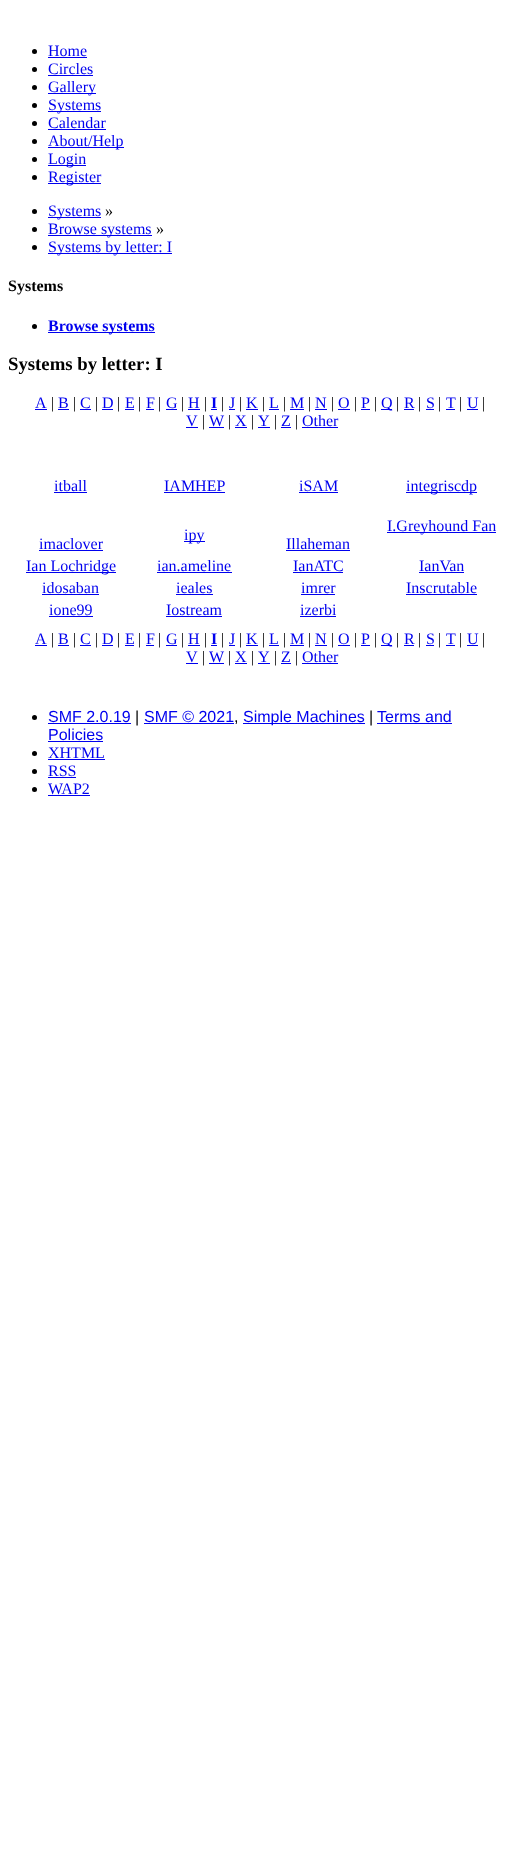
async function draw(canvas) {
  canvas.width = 528;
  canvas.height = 1856;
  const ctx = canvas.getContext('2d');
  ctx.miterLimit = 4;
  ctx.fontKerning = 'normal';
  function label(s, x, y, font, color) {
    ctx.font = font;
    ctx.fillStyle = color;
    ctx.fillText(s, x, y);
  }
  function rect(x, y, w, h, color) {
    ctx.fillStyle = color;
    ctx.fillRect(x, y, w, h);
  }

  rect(0, 0, 528, 1856, '#fff');
  ctx.fillStyle = '#000';
  ctx.beginPath();
  ctx.arc(34.5, 51.5, 2.5, 0, 2 * Math.PI);
  ctx.fill();
  label('Home', 48, 56, '16px Liberation Serif', '#00e');
  rect(48, 57, 39, 1, '#00e');
  ctx.fillStyle = '#000';
  ctx.beginPath();
  ctx.arc(34.5, 69.5, 2.5, 0, 2 * Math.PI);
  ctx.fill();
  label('Circles', 48, 74, '16px Liberation Serif', '#00e');
  rect(48, 75, 45, 1, '#00e');
  ctx.fillStyle = '#000';
  ctx.beginPath();
  ctx.arc(34.5, 87.5, 2.5, 0, 2 * Math.PI);
  ctx.fill();
  rect(48, 93, 48, 1, '#00e');
  label('Gallery', 48, 92, '16px Liberation Serif', '#00e');
  ctx.fillStyle = '#000';
  ctx.beginPath();
  ctx.arc(34.5, 105.5, 2.5, 0, 2 * Math.PI);
  ctx.fill();
  rect(48, 111, 53, 1, '#00e');
  label('Systems', 48, 110, '16px Liberation Serif', '#00e');
  ctx.fillStyle = '#000';
  ctx.beginPath();
  ctx.arc(34.5, 123.5, 2.5, 0, 2 * Math.PI);
  ctx.fill();
  label('Calendar', 48, 128, '16px Liberation Serif', '#00e');
  rect(48, 129, 58, 1, '#00e');
  ctx.fillStyle = '#000';
  ctx.beginPath();
  ctx.arc(34.5, 141.5, 2.5, 0, 2 * Math.PI);
  ctx.fill();
  rect(48, 147, 76, 1, '#00e');
  label('About/Help', 48, 146, '16px Liberation Serif', '#00e');
  ctx.fillStyle = '#000';
  ctx.beginPath();
  ctx.arc(34.5, 159.5, 2.5, 0, 2 * Math.PI);
  ctx.fill();
  rect(48, 165, 38, 1, '#00e');
  label('Login', 48, 164, '16px Liberation Serif', '#00e');
  ctx.fillStyle = '#000';
  ctx.beginPath();
  ctx.arc(34.5, 177.5, 2.5, 0, 2 * Math.PI);
  ctx.fill();
  rect(48, 183, 53, 1, '#00e');
  label('Register', 48, 182, '16px Liberation Serif', '#00e');
  ctx.fillStyle = '#000';
  ctx.beginPath();
  ctx.arc(34.5, 211.5, 2.5, 0, 2 * Math.PI);
  ctx.fill();
  rect(48, 217, 53, 1, '#00e');
  label('Systems', 48, 216, '16px Liberation Serif', '#00e');
  label('»', 105, 216, '16px Liberation Serif', '#000');
  ctx.beginPath();
  ctx.arc(34.5, 229.5, 2.5, 0, 2 * Math.PI);
  ctx.fill();
  rect(48, 235, 104, 1, '#00e');
  label('Browse systems', 48, 234, '16px Liberation Serif', '#00e');
  label('»', 156, 234, '16px Liberation Serif', '#000');
  ctx.beginPath();
  ctx.arc(34.5, 247.5, 2.5, 0, 2 * Math.PI);
  ctx.fill();
  rect(48, 253, 124, 1, '#00e');
  label('Systems by letter: I', 48, 252, '16px Liberation Serif', '#00e');
  label('Systems', 8, 291, 'bold 16px Liberation Serif', '#000');
  ctx.beginPath();
  ctx.arc(34.5, 326.5, 2.5, 0, 2 * Math.PI);
  ctx.fill();
  rect(48, 332, 107, 1, '#00e');
  label('Browse systems', 48, 331, 'bold 16px Liberation Serif', '#00e');
  label('Systems by letter: I', 8, 370, 'bold 18.75px Liberation Serif', '#000');
  label('A', 35, 408, '16px Liberation Serif', '#00e');
  rect(35, 409, 12, 1, '#00e');
  label('|', 51, 408, '16px Liberation Serif', '#000');
  label('B', 58, 408, '16px Liberation Serif', '#00e');
  rect(58, 409, 11, 1, '#00e');
  label('|', 73, 408, '16px Liberation Serif', '#000');
  label('C', 80, 408, '16px Liberation Serif', '#00e');
  rect(80, 409, 11, 1, '#00e');
  label('|', 95, 408, '16px Liberation Serif', '#000');
  label('D', 102, 408, '16px Liberation Serif', '#00e');
  rect(102, 409, 11, 1, '#00e');
  label('|', 117, 408, '16px Liberation Serif', '#000');
  label('E', 125, 408, '16px Liberation Serif', '#00e');
  rect(125, 409, 9, 1, '#00e');
  label('|', 138, 408, '16px Liberation Serif', '#000');
  label('F', 146, 408, '16px Liberation Serif', '#00e');
  rect(146, 409, 8, 1, '#00e');
  label('|', 158, 408, '16px Liberation Serif', '#000');
  label('G', 166, 408, '16px Liberation Serif', '#00e');
  rect(166, 409, 11, 1, '#00e');
  label('|', 181, 408, '16px Liberation Serif', '#000');
  label('H', 188, 408, '16px Liberation Serif', '#00e');
  rect(188, 409, 12, 1, '#00e');
  label('|', 204, 408, '16px Liberation Serif', '#000');
  label('I', 211, 408, 'bold 16px Liberation Serif', '#00e');
  rect(211, 409, 6, 1, '#00e');
  label('|', 221, 408, '16px Liberation Serif', '#000');
  label('J', 229, 408, '16px Liberation Serif', '#00e');
  rect(229, 409, 6, 1, '#00e');
  label('|', 239, 408, '16px Liberation Serif', '#000');
  label('K', 246, 408, '16px Liberation Serif', '#00e');
  rect(246, 409, 12, 1, '#00e');
  label('|', 262, 408, '16px Liberation Serif', '#000');
  label('L', 269, 408, '16px Liberation Serif', '#00e');
  rect(269, 409, 10, 1, '#00e');
  label('|', 283, 408, '16px Liberation Serif', '#000');
  label('M', 290, 408, '16px Liberation Serif', '#00e');
  rect(290, 409, 14, 1, '#00e');
  label('|', 308, 408, '16px Liberation Serif', '#000');
  label('N', 315, 408, '16px Liberation Serif', '#00e');
  rect(315, 409, 12, 1, '#00e');
  label('|', 331, 408, '16px Liberation Serif', '#000');
  label('O', 338, 408, '16px Liberation Serif', '#00e');
  rect(338, 409, 12, 1, '#00e');
  label('|', 354, 408, '16px Liberation Serif', '#000');
  label('P', 361, 408, '16px Liberation Serif', '#00e');
  rect(361, 409, 9, 1, '#00e');
  label('|', 374, 408, '16px Liberation Serif', '#000');
  rect(381, 409, 11, 1, '#00e');
  label('Q', 381, 408, '16px Liberation Serif', '#00e');
  label('|', 396, 408, '16px Liberation Serif', '#000');
  label('R', 404, 408, '16px Liberation Serif', '#00e');
  rect(404, 409, 10, 1, '#00e');
  label('|', 418, 408, '16px Liberation Serif', '#000');
  label('S', 426, 408, '16px Liberation Serif', '#00e');
  rect(426, 409, 8, 1, '#00e');
  label('|', 438, 408, '16px Liberation Serif', '#000');
  label('T', 446, 408, '16px Liberation Serif', '#00e');
  rect(446, 409, 9, 1, '#00e');
  label('|', 459, 408, '16px Liberation Serif', '#000');
  label('U', 467, 408, '16px Liberation Serif', '#00e');
  rect(467, 409, 11, 1, '#00e');
  label('|', 482, 408, '16px Liberation Serif', '#000');
  label('V', 186, 426, '16px Liberation Serif', '#00e');
  rect(186, 427, 12, 1, '#00e');
  label('|', 202, 426, '16px Liberation Serif', '#000');
  label('W', 209, 426, '16px Liberation Serif', '#00e');
  rect(209, 427, 15, 1, '#00e');
  label('|', 228, 426, '16px Liberation Serif', '#000');
  label('X', 235, 426, '16px Liberation Serif', '#00e');
  rect(235, 427, 12, 1, '#00e');
  label('|', 251, 426, '16px Liberation Serif', '#000');
  label('Y', 258, 426, '16px Liberation Serif', '#00e');
  rect(258, 427, 12, 1, '#00e');
  label('|', 274, 426, '16px Liberation Serif', '#000');
  label('Z', 281, 426, '16px Liberation Serif', '#00e');
  rect(281, 427, 10, 1, '#00e');
  label('|', 295, 426, '16px Liberation Serif', '#000');
  label('Other', 302, 426, '16px Liberation Serif', '#00e');
  rect(302, 427, 36, 1, '#00e');
  label('itball', 54, 491, '16px Liberation Serif', '#00e');
  rect(54, 492, 33, 1, '#00e');
  label('IAMHEP', 164, 491, '16px Liberation Serif', '#00e');
  rect(164, 492, 61, 1, '#00e');
  label('iSAM', 299, 491, '16px Liberation Serif', '#00e');
  rect(299, 492, 39, 1, '#00e');
  rect(406, 492, 71, 1, '#00e');
  label('integriscdp', 406, 491, '16px Liberation Serif', '#00e');
  rect(387, 532, 109, 1, '#00e');
  label('I.Greyhound Fan', 387, 531, '16px Liberation Serif', '#00e');
  label('imaclover', 39, 549, '16px Liberation Serif', '#00e');
  rect(39, 550, 64, 1, '#00e');
  rect(184, 541, 21, 1, '#00e');
  label('ipy', 184, 540, '16px Liberation Serif', '#00e');
  label('Illaheman', 286, 549, '16px Liberation Serif', '#00e');
  rect(286, 550, 64, 1, '#00e');
  rect(26, 572, 90, 1, '#00e');
  label('Ian Lochridge', 26, 571, '16px Liberation Serif', '#00e');
  label('ian.ameline', 157, 571, '16px Liberation Serif', '#00e');
  rect(157, 572, 75, 1, '#00e');
  label('IanATC', 293, 571, '16px Liberation Serif', '#00e');
  rect(293, 572, 50, 1, '#00e');
  label('IanVan', 419, 571, '16px Liberation Serif', '#00e');
  rect(419, 572, 45, 1, '#00e');
  label('idosaban', 42, 593, '16px Liberation Serif', '#00e');
  rect(42, 594, 57, 1, '#00e');
  label('ieales', 176, 593, '16px Liberation Serif', '#00e');
  rect(176, 594, 37, 1, '#00e');
  label('imrer', 301, 593, '16px Liberation Serif', '#00e');
  rect(301, 594, 34, 1, '#00e');
  label('Inscrutable', 406, 593, '16px Liberation Serif', '#00e');
  rect(406, 594, 71, 1, '#00e');
  label('ione99', 49, 615, '16px Liberation Serif', '#00e');
  rect(49, 616, 44, 1, '#00e');
  label('Iostream', 166, 615, '16px Liberation Serif', '#00e');
  rect(166, 616, 56, 1, '#00e');
  label('izerbi', 300, 615, '16px Liberation Serif', '#00e');
  rect(300, 616, 36, 1, '#00e');
  label('A', 35, 644, '16px Liberation Serif', '#00e');
  rect(35, 645, 12, 1, '#00e');
  label('|', 51, 644, '16px Liberation Serif', '#000');
  label('B', 58, 644, '16px Liberation Serif', '#00e');
  rect(58, 645, 11, 1, '#00e');
  label('|', 73, 644, '16px Liberation Serif', '#000');
  label('C', 80, 644, '16px Liberation Serif', '#00e');
  rect(80, 645, 11, 1, '#00e');
  label('|', 95, 644, '16px Liberation Serif', '#000');
  label('D', 102, 644, '16px Liberation Serif', '#00e');
  rect(102, 645, 11, 1, '#00e');
  label('|', 117, 644, '16px Liberation Serif', '#000');
  label('E', 125, 644, '16px Liberation Serif', '#00e');
  rect(125, 645, 9, 1, '#00e');
  label('|', 138, 644, '16px Liberation Serif', '#000');
  label('F', 146, 644, '16px Liberation Serif', '#00e');
  rect(146, 645, 8, 1, '#00e');
  label('|', 158, 644, '16px Liberation Serif', '#000');
  label('G', 166, 644, '16px Liberation Serif', '#00e');
  rect(166, 645, 11, 1, '#00e');
  label('|', 181, 644, '16px Liberation Serif', '#000');
  label('H', 188, 644, '16px Liberation Serif', '#00e');
  rect(188, 645, 12, 1, '#00e');
  label('|', 204, 644, '16px Liberation Serif', '#000');
  label('I', 211, 644, 'bold 16px Liberation Serif', '#00e');
  rect(211, 645, 6, 1, '#00e');
  label('|', 221, 644, '16px Liberation Serif', '#000');
  label('J', 229, 644, '16px Liberation Serif', '#00e');
  rect(229, 645, 6, 1, '#00e');
  label('|', 239, 644, '16px Liberation Serif', '#000');
  label('K', 246, 644, '16px Liberation Serif', '#00e');
  rect(246, 645, 12, 1, '#00e');
  label('|', 262, 644, '16px Liberation Serif', '#000');
  label('L', 269, 644, '16px Liberation Serif', '#00e');
  rect(269, 645, 10, 1, '#00e');
  label('|', 283, 644, '16px Liberation Serif', '#000');
  label('M', 290, 644, '16px Liberation Serif', '#00e');
  rect(290, 645, 14, 1, '#00e');
  label('|', 308, 644, '16px Liberation Serif', '#000');
  label('N', 315, 644, '16px Liberation Serif', '#00e');
  rect(315, 645, 12, 1, '#00e');
  label('|', 331, 644, '16px Liberation Serif', '#000');
  label('O', 338, 644, '16px Liberation Serif', '#00e');
  rect(338, 645, 12, 1, '#00e');
  label('|', 354, 644, '16px Liberation Serif', '#000');
  label('P', 361, 644, '16px Liberation Serif', '#00e');
  rect(361, 645, 9, 1, '#00e');
  label('|', 374, 644, '16px Liberation Serif', '#000');
  rect(381, 645, 11, 1, '#00e');
  label('Q', 381, 644, '16px Liberation Serif', '#00e');
  label('|', 396, 644, '16px Liberation Serif', '#000');
  label('R', 404, 644, '16px Liberation Serif', '#00e');
  rect(404, 645, 10, 1, '#00e');
  label('|', 418, 644, '16px Liberation Serif', '#000');
  label('S', 426, 644, '16px Liberation Serif', '#00e');
  rect(426, 645, 8, 1, '#00e');
  label('|', 438, 644, '16px Liberation Serif', '#000');
  label('T', 446, 644, '16px Liberation Serif', '#00e');
  rect(446, 645, 9, 1, '#00e');
  label('|', 459, 644, '16px Liberation Serif', '#000');
  label('U', 467, 644, '16px Liberation Serif', '#00e');
  rect(467, 645, 11, 1, '#00e');
  label('|', 482, 644, '16px Liberation Serif', '#000');
  label('V', 186, 662, '16px Liberation Serif', '#00e');
  rect(186, 663, 12, 1, '#00e');
  label('|', 202, 662, '16px Liberation Serif', '#000');
  label('W', 209, 662, '16px Liberation Serif', '#00e');
  rect(209, 663, 15, 1, '#00e');
  label('|', 228, 662, '16px Liberation Serif', '#000');
  label('X', 235, 662, '16px Liberation Serif', '#00e');
  rect(235, 663, 12, 1, '#00e');
  label('|', 251, 662, '16px Liberation Serif', '#000');
  label('Y', 258, 662, '16px Liberation Serif', '#00e');
  rect(258, 663, 12, 1, '#00e');
  label('|', 274, 662, '16px Liberation Serif', '#000');
  label('Z', 281, 662, '16px Liberation Serif', '#00e');
  rect(281, 663, 10, 1, '#00e');
  label('|', 295, 662, '16px Liberation Serif', '#000');
  label('Other', 302, 662, '16px Liberation Serif', '#00e');
  rect(302, 663, 36, 1, '#00e');
  ctx.fillStyle = '#000';
  ctx.beginPath();
  ctx.arc(34.5, 717.5, 2.5, 0, 2 * Math.PI);
  ctx.fill();
  label('SMF 2.0.19', 48, 722, '16px Liberation Sans', '#00e');
  rect(48, 723, 83, 1, '#00e');
  label('|', 135, 722, '16px Liberation Sans', '#000');
  label('SMF © 2021', 144, 722, '16px Liberation Sans', '#00e');
  rect(243, 723, 122, 1, '#00e');
  label('Simple Machines', 243, 722, '16px Liberation Sans', '#00e');
  label('|', 369, 722, '16px Liberation Sans', '#000');
  label('Terms and', 377, 722, '16px Liberation Sans', '#00e');
  rect(377, 723, 75, 1, '#00e');
  label(',', 234, 722, '16px Liberation Sans', '#000');
  rect(144, 723, 90, 1, '#00e');
  label('Policies', 48, 740, '16px Liberation Sans', '#00e');
  rect(48, 741, 55, 1, '#00e');
  ctx.fillStyle = '#000';
  ctx.beginPath();
  ctx.arc(34.5, 753.5, 2.5, 0, 2 * Math.PI);
  ctx.fill();
  label('XHTML', 48, 758, '16px Liberation Serif', '#00e');
  rect(48, 759, 57, 1, '#00e');
  ctx.fillStyle = '#000';
  ctx.beginPath();
  ctx.arc(34.5, 771.5, 2.5, 0, 2 * Math.PI);
  ctx.fill();
  label('RSS', 48, 776, '16px Liberation Serif', '#00e');
  rect(48, 777, 28, 1, '#00e');
  ctx.fillStyle = '#000';
  ctx.beginPath();
  ctx.arc(34.5, 789.5, 2.5, 0, 2 * Math.PI);
  ctx.fill();
  label('WAP2', 48, 794, '16px Liberation Serif', '#00e');
  rect(48, 795, 42, 1, '#00e');
}

draw(document.querySelector('canvas'));
